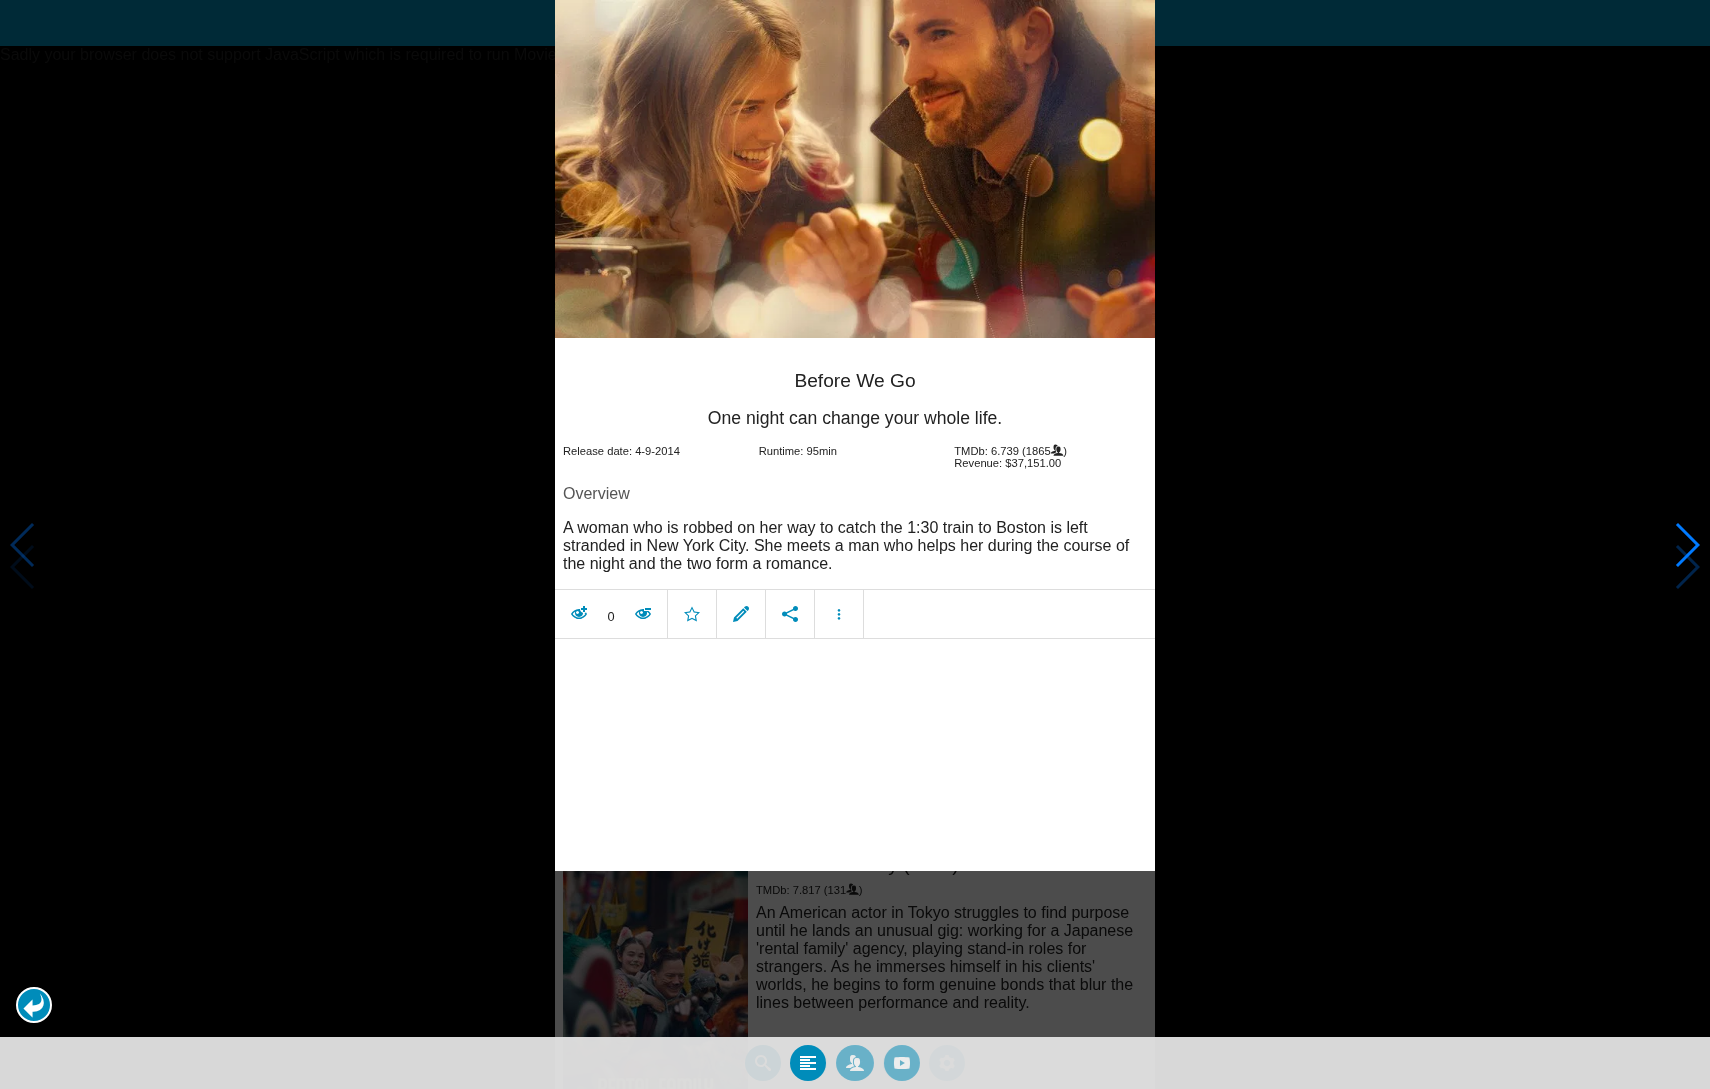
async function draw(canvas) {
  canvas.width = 1710;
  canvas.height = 1089;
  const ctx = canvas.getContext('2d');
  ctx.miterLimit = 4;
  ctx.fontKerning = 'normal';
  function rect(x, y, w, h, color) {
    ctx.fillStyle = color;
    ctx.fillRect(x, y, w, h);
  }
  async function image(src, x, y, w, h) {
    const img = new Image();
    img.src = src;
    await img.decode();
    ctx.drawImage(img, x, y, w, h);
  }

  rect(0, 0, 1710, 1089, '#fff');
  await image('assets/img1.png', 0, 0, 1710, 1089);
}

draw(document.querySelector('canvas'));
